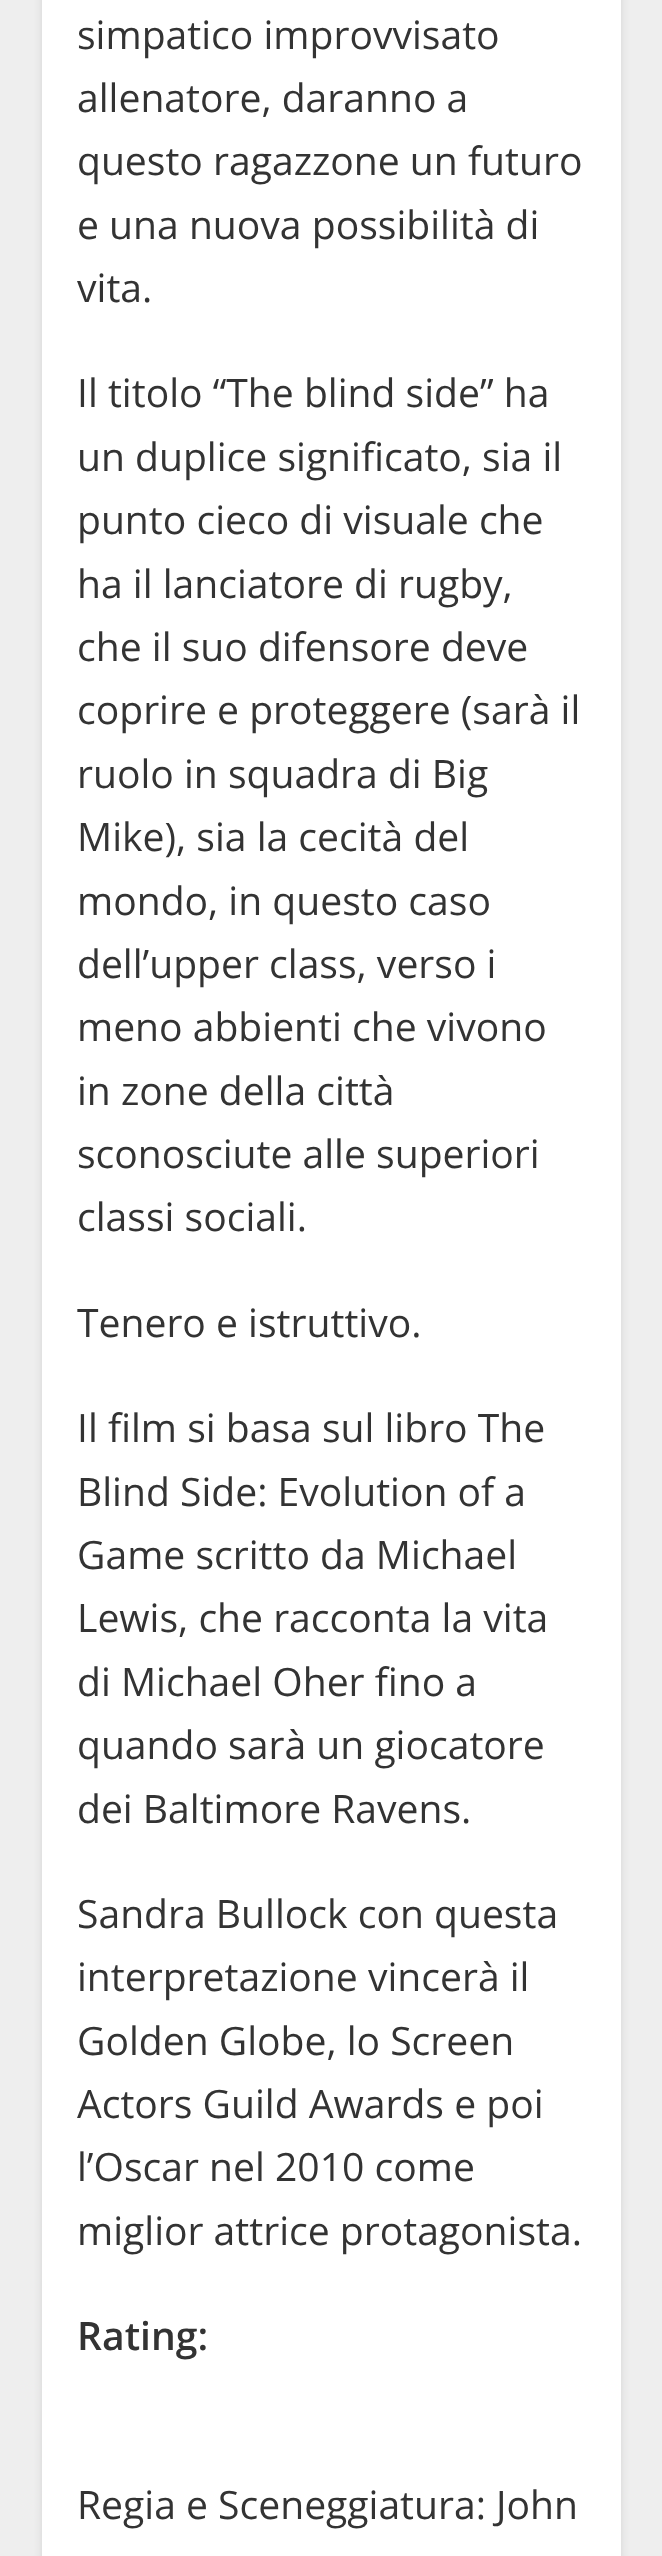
async function draw(canvas) {
  canvas.width = 662;
  canvas.height = 2556;
  const ctx = canvas.getContext('2d');
  ctx.miterLimit = 4;
  ctx.fontKerning = 'normal';
  function label(s, x, y, font, color) {
    ctx.font = font;
    ctx.fillStyle = color;
    ctx.fillText(s, x, y);
  }
  function rect(x, y, w, h, color) {
    ctx.fillStyle = color;
    ctx.fillRect(x, y, w, h);
  }

  rect(0, 0, 662, 2556, '#eee');
  ctx.fillStyle = '#0000001a';
  ctx.filter = 'blur(4.5px)';
  ctx.beginPath();
  ctx.rect(42, -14, 579, 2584);
  ctx.fill();
  ctx.filter = 'none';
  rect(42, 0, 579, 2556, '#fff');
  label('simpatico improvvisato', 77, 49, '39.1px Open Sans', '#333');
  label('allenatore, daranno a', 77, 112, '39.1px Open Sans', '#333');
  label('questo ragazzone un futuro', 77, 175, '39.1px Open Sans', '#333');
  label('e una nuova possibilità di', 77, 239, '39.1px Open Sans', '#333');
  label('vita.', 77, 302, '39.1px Open Sans', '#333');
  label('Il titolo “The blind side” ha', 77, 407, '39.1px Open Sans', '#333');
  label('un duplice significato, sia il', 77, 471, '39.1px Open Sans', '#333');
  label('punto cieco di visuale che', 77, 534, '39.1px Open Sans', '#333');
  label('ha il lanciatore di rugby,', 77, 598, '39.1px Open Sans', '#333');
  label('che il suo difensore deve', 77, 661, '39.1px Open Sans', '#333');
  label('coprire e proteggere (sarà il', 77, 724, '39.1px Open Sans', '#333');
  label('ruolo in squadra di Big', 77, 788, '39.1px Open Sans', '#333');
  label('Mike), sia la cecità del', 77, 851, '39.1px Open Sans', '#333');
  label('mondo, in questo caso', 77, 915, '39.1px Open Sans', '#333');
  label('dell’upper class, verso i', 77, 978, '39.1px Open Sans', '#333');
  label('meno abbienti che vivono', 77, 1041, '39.1px Open Sans', '#333');
  label('in zone della città', 77, 1105, '39.1px Open Sans', '#333');
  label('sconosciute alle superiori', 77, 1168, '39.1px Open Sans', '#333');
  label('classi sociali.', 77, 1231, '39.1px Open Sans', '#333');
  label('Tenero e istruttivo.', 77, 1337, '39.1px Open Sans', '#333');
  label('Il film si basa sul libro The', 77, 1442, '39.1px Open Sans', '#333');
  label('Blind Side: Evolution of a', 77, 1506, '39.1px Open Sans', '#333');
  label('Game scritto da Michael', 77, 1569, '39.1px Open Sans', '#333');
  label('Lewis, che racconta la vita', 77, 1632, '39.1px Open Sans', '#333');
  label('di Michael Oher fino a', 77, 1696, '39.1px Open Sans', '#333');
  label('quando sarà un giocatore', 77, 1759, '39.1px Open Sans', '#333');
  label('dei Baltimore Ravens.', 77, 1823, '39.1px Open Sans', '#333');
  label('Sandra Bullock con questa', 77, 1928, '39.1px Open Sans', '#333');
  label('interpretazione vincerà il', 77, 1991, '39.1px Open Sans', '#333');
  label('Golden Globe, lo Screen', 77, 2055, '39.1px Open Sans', '#333');
  label('Actors Guild Awards e poi', 77, 2118, '39.1px Open Sans', '#333');
  label('l’Oscar nel 2010 come', 77, 2181, '39.1px Open Sans', '#333');
  label('miglior attrice protagonista.', 77, 2245, '39.1px Open Sans', '#333');
  label('Rating:', 77, 2350, '600 39.1px Open Sans', '#333');
  label('Regia e Sceneggiatura: John', 77, 2519, '39.1px Open Sans', '#333');
}

draw(document.querySelector('canvas'));
